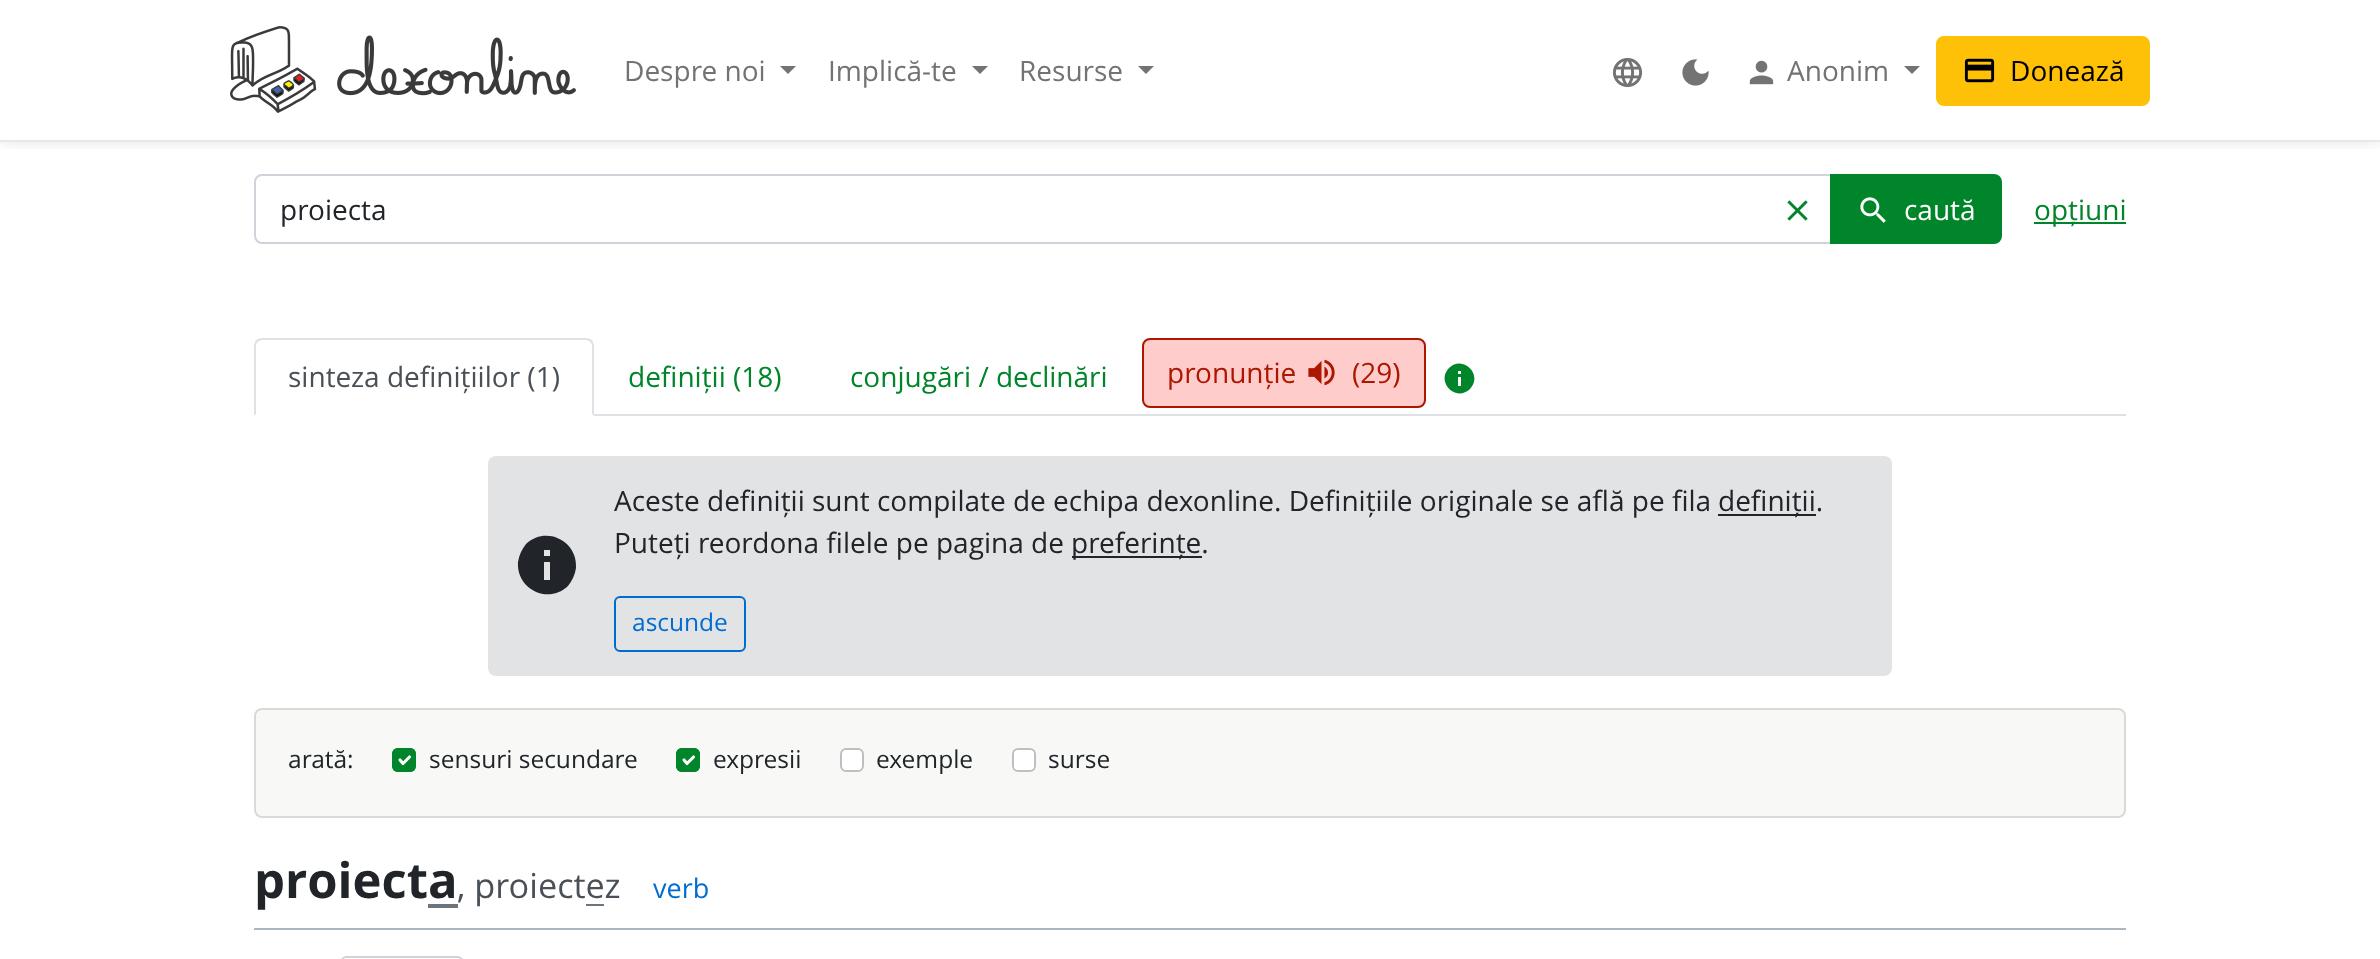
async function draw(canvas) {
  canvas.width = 2380;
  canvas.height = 959;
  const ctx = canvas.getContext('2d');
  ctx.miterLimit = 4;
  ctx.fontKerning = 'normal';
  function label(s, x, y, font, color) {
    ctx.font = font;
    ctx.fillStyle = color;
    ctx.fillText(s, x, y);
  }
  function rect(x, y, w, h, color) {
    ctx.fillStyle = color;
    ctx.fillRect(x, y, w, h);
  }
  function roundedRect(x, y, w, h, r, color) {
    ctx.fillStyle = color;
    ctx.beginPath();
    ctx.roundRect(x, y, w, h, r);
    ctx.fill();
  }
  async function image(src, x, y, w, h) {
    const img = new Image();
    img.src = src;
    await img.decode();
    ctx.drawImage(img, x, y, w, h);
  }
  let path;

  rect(0, 0, 2380, 959, '#fff');
  ctx.save();
  ctx.beginPath();
  ctx.rect(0, 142, 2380, 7);
  ctx.clip();
  ctx.fillStyle = '#0000001a';
  ctx.filter = 'blur(8px)';
  ctx.beginPath();
  ctx.rect(0, 0, 2380, 142);
  ctx.fill();
  ctx.filter = 'none';
  ctx.restore();
  rect(0, 140, 2380, 2, '#e8e8e8');
  await image('assets/img1.png', 230, 26, 346, 87);
  label('Despre noi', 624, 81, '28px Open Sans', '#737373');
  path = new Path2D('M780 66H796L788 74Z');
  ctx.fill(path);
  label('Implică-te', 828, 81, '28px Open Sans', '#737373');
  path = new Path2D('M972 66H988L980 74Z');
  ctx.fill(path);
  label('Resurse', 1019, 81, '28px Open Sans', '#737373');
  path = new Path2D('M1138 66H1154L1146 74Z');
  ctx.fill(path);
  await image('assets/img2.png', 1612, 57, 31, 31);
  await image('assets/img3.png', 1682, 59, 27, 27);
  await image('assets/img4.png', 1749, 60, 25, 25);
  label('Anonim', 1787, 81, '28px Open Sans', '#737373');
  path = new Path2D('M1904 66H1920L1912 74Z');
  ctx.fill(path);
  ctx.fillStyle = '#ffc107';
  ctx.beginPath();
  ctx.roundRect(1937, 37, 212, 68, 7);
  ctx.fill();
  ctx.strokeStyle = '#ffc107';
  ctx.lineWidth = 2;
  ctx.stroke();
  await image('assets/img5.png', 1964, 58, 31, 25);
  label('Donează', 2010, 81, '28px Open Sans', '#000');
  ctx.beginPath();
  ctx.roundRect(255, 175, 1578, 68, [7, 0, 0, 7]);
  ctx.strokeStyle = '#ced4da';
  ctx.stroke();
  label('proiecta', 280, 220, '28px Open Sans', '#212529');
  await image('assets/img6.png', 1787, 200, 21, 21);
  ctx.fillStyle = '#00852a';
  ctx.beginPath();
  ctx.roundRect(1831, 175, 170, 68, [0, 7, 7, 0]);
  ctx.fill();
  ctx.strokeStyle = '#00852a';
  ctx.stroke();
  await image('assets/img7.png', 1860, 197, 26, 26);
  label('caută', 1904, 220, '28px Open Sans', '#fff');
  rect(2034, 222, 92, 2, '#00852a');
  label('opțiuni', 2034, 220, '28px Open Sans', '#00852a');
  rect(594, 414, 1532, 2, '#dee2e6');
  path = new Path2D('M262 338C260 338 258 339 256 340L258 342L261 340H586C588 340 589 341 590 342L592 340C590 339 588 338 586 338Z');
  ctx.fill(path);
  path = new Path2D('M594 416V346C594 344 593 342 592 340L590 342C591 343 592 344 592 346V414Z');
  ctx.fill(path);
  ctx.fillStyle = '#fff';
  path = new Path2D('M594 416L592 414H256L254 416Z');
  ctx.fill(path);
  ctx.fillStyle = '#dee2e6';
  path = new Path2D('M254 416L256 414V346C256 344 257 343 258 342L256 340C255 342 254 344 254 346Z');
  ctx.fill(path);
  label('sinteza definițiilor (1)', 288, 387, '28px Open Sans', '#495057');
  label('definiții (18)', 628, 387, '28px Open Sans', '#00852a');
  label('conjugări / declinări', 850, 387, '28px Open Sans', '#00852a');
  ctx.fillStyle = '#fcc';
  ctx.beginPath();
  ctx.roundRect(1143, 339, 282, 68, 7);
  ctx.fill();
  ctx.strokeStyle = '#ad1700';
  ctx.stroke();
  label('pronunție', 1167, 383, '28px Open Sans', '#ad1700');
  await image('assets/img8.png', 1308, 359, 27, 27);
  label('(29)', 1352, 383, '28px Open Sans', '#ad1700');
  ctx.fillStyle = '#00852a';
  path = new Path2D('M1461 374V371H1458V374ZM1461 386V377H1458V386ZM1449 368C1463 354.5 1483.5 375 1470 389C1456 402.5 1435.5 382 1449 368Z');
  ctx.fill(path);
  roundedRect(488, 456, 1404, 220, 8, '#e2e3e5');
  ctx.fillStyle = '#212529';
  path = new Path2D('M550 556V550H544V556ZM550 580V562H544V580ZM526 544C546 525 578 541 576 568C575 575 572 581 568 586C548 605 516 589 518 562C519 555 522 549 526 544Z');
  ctx.fill(path);
  label('Aceste definiții sunt compilate de echipa dexonline. Definițiile originale se află pe fila', 614, 511, '28px Open Sans', '#212529');
  rect(1718, 514, 98, 2, '#212529');
  label('definiții.', 1718, 511, '28px Open Sans', '#212529');
  label('Puteți reordona filele pe pagina de', 614, 553, '28px Open Sans', '#212529');
  rect(1072, 556, 130, 2, '#212529');
  label('preferințe.', 1071, 553, '28px Open Sans', '#212529');
  ctx.beginPath();
  ctx.roundRect(615, 597, 130, 54, 5);
  ctx.strokeStyle = '#006cd1';
  ctx.stroke();
  label('ascunde', 632, 631, '24.5px Open Sans', '#006cd1');
  roundedRect(254, 708, 1872, 110, 8, '#f8f9f6');
  ctx.beginPath();
  ctx.roundRect(255, 709, 1870, 108, 7);
  ctx.strokeStyle = '#0000001f';
  ctx.stroke();
  label('arată:', 288, 768, '24.5px Open Sans', '#212529');
  roundedRect(392, 748, 24, 24, 6, '#00852a');
  path = new Path2D('M400 760L403 763.5L409.5 757');
  ctx.strokeStyle = '#fff';
  ctx.lineWidth = 3.1;
  ctx.lineCap = 'round';
  ctx.lineJoin = 'round';
  ctx.stroke(path);
  ctx.beginPath();
  ctx.roundRect(393, 749, 22, 22, 5);
  ctx.strokeStyle = '#00852a';
  ctx.lineWidth = 2;
  ctx.lineJoin = 'miter';
  ctx.stroke();
  label('sensuri secundare', 429, 768, '24.5px Open Sans', '#212529');
  roundedRect(676, 748, 24, 24, 6, '#00852a');
  path = new Path2D('M684 760L687 763.5L693.5 757');
  ctx.strokeStyle = '#fff';
  ctx.lineWidth = 3.1;
  ctx.lineJoin = 'round';
  ctx.stroke(path);
  ctx.beginPath();
  ctx.roundRect(677, 749, 22, 22, 5);
  ctx.strokeStyle = '#00852a';
  ctx.lineWidth = 2;
  ctx.lineJoin = 'miter';
  ctx.stroke();
  label('expresii', 713, 768, '24.5px Open Sans', '#212529');
  ctx.fillStyle = '#fff';
  ctx.beginPath();
  ctx.roundRect(841, 749, 22, 22, 5);
  ctx.fill();
  ctx.strokeStyle = '#bfbfbf';
  ctx.stroke();
  label('exemple', 876, 768, '24.5px Open Sans', '#212529');
  ctx.fillStyle = '#fff';
  ctx.beginPath();
  ctx.roundRect(1013, 749, 22, 22, 5);
  ctx.fill();
  ctx.stroke();
  label('surse', 1048, 768, '24.5px Open Sans', '#212529');
  rect(254, 928, 1872, 2, '#adb5bd');
  label('proiecta', 254, 898, 'bold 49px Open Sans', '#212529');
  label(', proiectez', 457, 898, '34.25px Open Sans', '#495057');
  rect(586, 904, 18, 2, '#6c757d');
  label('verb', 653, 898, '27px Open Sans', '#006cd1');
  rect(428, 904, 30, 4, '#6c757d');
  ctx.beginPath();
  ctx.roundRect(341, 957, 122, 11, 7);
  ctx.strokeStyle = '#ced4da';
  ctx.stroke();
}

draw(document.querySelector('canvas'));
